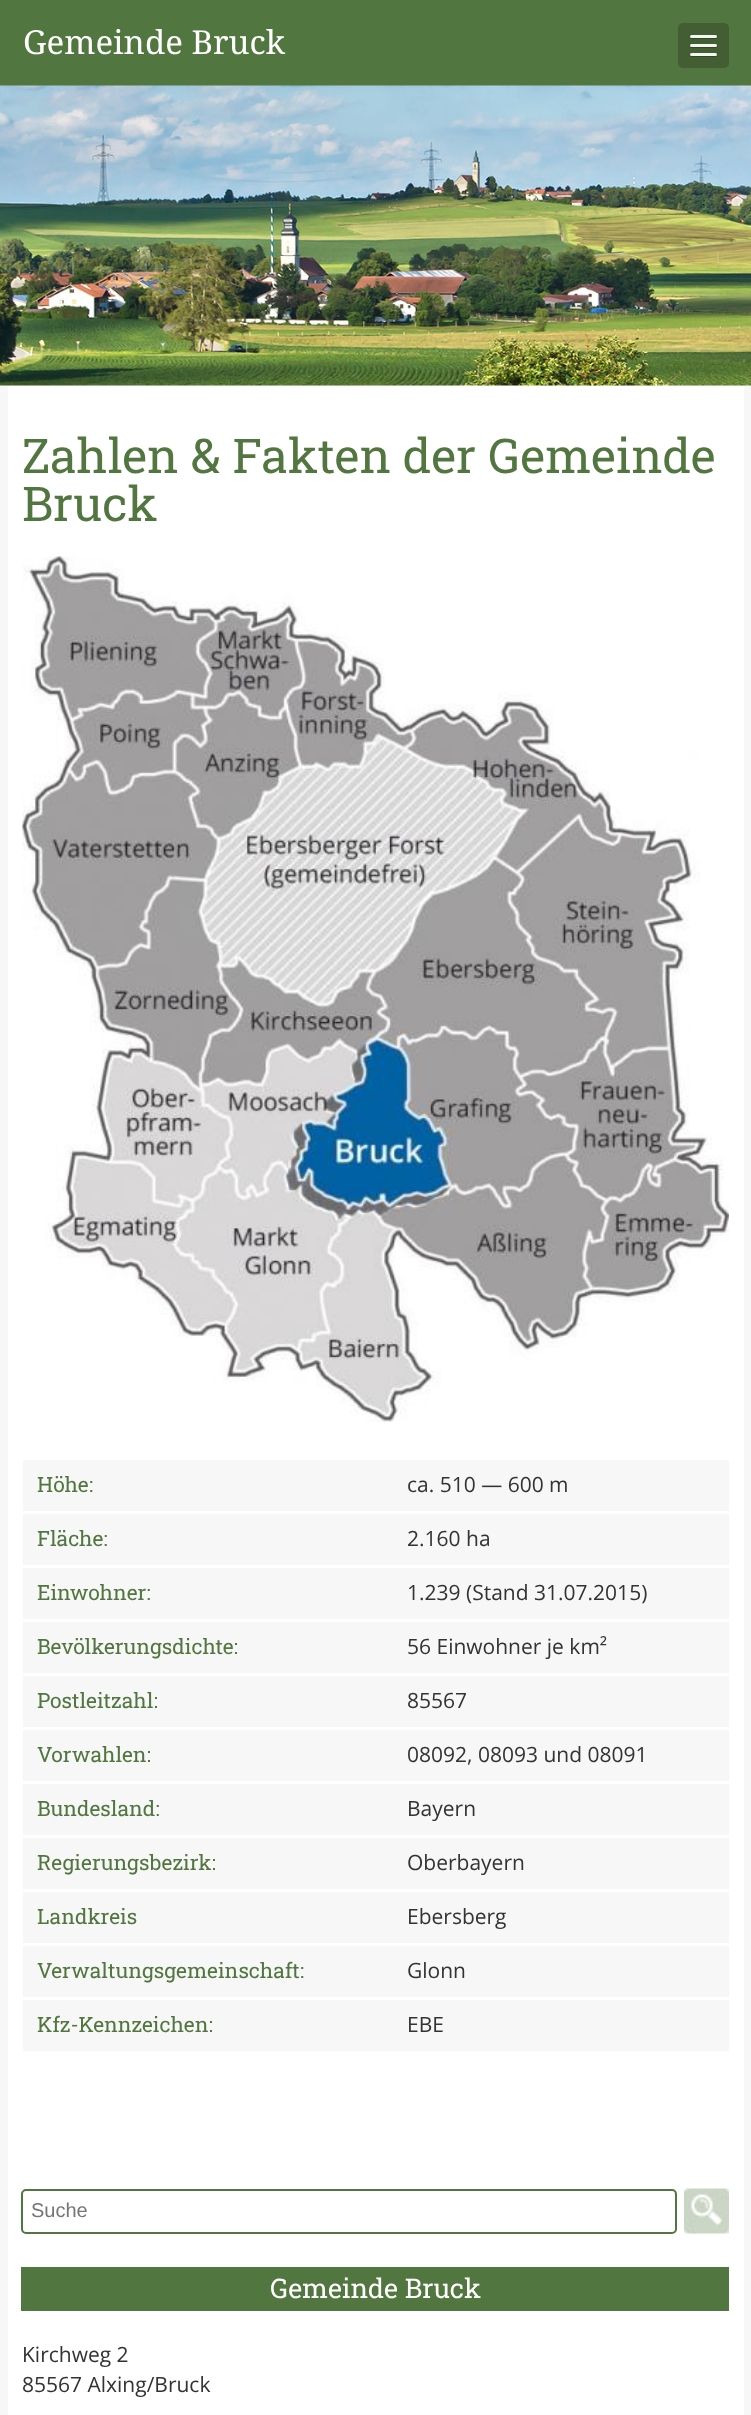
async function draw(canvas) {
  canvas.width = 751;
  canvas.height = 2415;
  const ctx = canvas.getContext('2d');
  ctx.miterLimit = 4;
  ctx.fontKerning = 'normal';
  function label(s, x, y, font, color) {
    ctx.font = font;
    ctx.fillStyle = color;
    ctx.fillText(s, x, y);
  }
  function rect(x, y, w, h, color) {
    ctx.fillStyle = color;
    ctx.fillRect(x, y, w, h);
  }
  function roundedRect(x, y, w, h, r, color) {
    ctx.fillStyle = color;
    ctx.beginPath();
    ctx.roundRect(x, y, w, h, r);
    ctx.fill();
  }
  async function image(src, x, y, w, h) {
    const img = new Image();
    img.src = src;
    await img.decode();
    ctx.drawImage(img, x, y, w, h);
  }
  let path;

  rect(0, 0, 751, 2415, '#f7f7f7');
  rect(0, 0, 751, 86, '#52763f');
  label('Gemeinde Bruck', 23, 54, '33px Noto Serif', '#fff');
  roundedRect(678, 23, 51, 45, 5, '#425e32');
  ctx.fillStyle = '#324726';
  path = new Path2D('M690 36.5C688.5 40 695.5 39 695.5 39H711.5C711.5 39 718.5 40 717 36.5C716.5 37 716 37.5 715.5 37.5H691.5C691 37.5 690.5 37 690 36.5Z');
  ctx.fill(path);
  roundedRect(690, 35, 27, 3, 1.5, '#f5f5f5');
  ctx.fillStyle = '#324726';
  path = new Path2D('M690 45.5C688.5 49 695.5 48 695.5 48H711.5C711.5 48 718.5 49 717 45.5C716.5 46 716 46.5 715.5 46.5H691.5C691 46.5 690.5 46 690 45.5Z');
  ctx.fill(path);
  roundedRect(690, 44, 27, 3, 1.5, '#f5f5f5');
  ctx.fillStyle = '#324726';
  path = new Path2D('M690 54.5C688.5 58 695.5 57 695.5 57H711.5C711.5 57 718.5 58 717 54.5C716.5 55 716 55.5 715.5 55.5H691.5C691 55.5 690.5 55 690 54.5Z');
  ctx.fill(path);
  roundedRect(690, 53, 27, 3, 1.5, '#f5f5f5');
  await image('assets/img1.png', 0, 85, 751, 301);
  rect(8, 386, 736, 2029, '#fff');
  label('Zahlen & Fakten der Gemeinde', 22, 473, '48px Roboto Slab', '#52763f');
  label('Bruck', 22, 521, '48px Roboto Slab', '#52763f');
  await image('assets/img2.png', 22, 556, 707, 866);
  rect(23, 1460, 706, 51, '#f7f7f7');
  label('Höhe:', 37, 1492, '21px Roboto Slab', '#52763f');
  label('ca. 510 — 600 m', 407, 1492, '21px Open Sans', '#333');
  rect(23, 1514, 706, 51, '#f7f7f7');
  label('Fläche:', 37, 1546, '21px Roboto Slab', '#52763f');
  label('2.160 ha', 407, 1546, '21px Open Sans', '#333');
  rect(23, 1568, 706, 51, '#f7f7f7');
  label('Einwohner:', 37, 1600, '21px Roboto Slab', '#52763f');
  label('1.239 (Stand 31.07.2015)', 407, 1600, '21px Open Sans', '#333');
  rect(23, 1622, 706, 51, '#f7f7f7');
  label('Bevölkerungsdichte:', 37, 1654, '21px Roboto Slab', '#52763f');
  label('56 Einwohner je km²', 407, 1654, '21px Open Sans', '#333');
  rect(23, 1676, 706, 51, '#f7f7f7');
  label('Postleitzahl:', 37, 1708, '21px Roboto Slab', '#52763f');
  label('85567', 407, 1708, '21px Open Sans', '#333');
  rect(23, 1730, 706, 51, '#f7f7f7');
  label('Vorwahlen:', 37, 1762, '21px Roboto Slab', '#52763f');
  label('08092, 08093 und 08091', 407, 1762, '21px Open Sans', '#333');
  rect(23, 1784, 706, 51, '#f7f7f7');
  label('Bundesland:', 37, 1816, '21px Roboto Slab', '#52763f');
  label('Bayern', 407, 1816, '21px Open Sans', '#333');
  rect(23, 1838, 706, 51, '#f7f7f7');
  label('Regierungsbezirk:', 37, 1870, '21px Roboto Slab', '#52763f');
  label('Oberbayern', 407, 1870, '21px Open Sans', '#333');
  rect(23, 1892, 706, 51, '#f7f7f7');
  label('Landkreis', 37, 1924, '21px Roboto Slab', '#52763f');
  label('Ebersberg', 407, 1924, '21px Open Sans', '#333');
  rect(23, 1946, 706, 51, '#f7f7f7');
  label('Verwaltungsgemeinschaft:', 37, 1978, '21px Roboto Slab', '#52763f');
  label('Glonn', 407, 1978, '21px Open Sans', '#333');
  rect(23, 2000, 706, 51, '#f7f7f7');
  label('Kfz-Kennzeichen:', 37, 2032, '21px Roboto Slab', '#52763f');
  label('EBE', 407, 2032, '21px Open Sans', '#333');
  ctx.beginPath();
  ctx.roundRect(22, 2190, 654, 43, 4);
  ctx.strokeStyle = '#52763f';
  ctx.lineWidth = 2;
  ctx.stroke();
  label('Suche', 31, 2217, '20px Liberation Sans', '#757575');
  await image('assets/img3.png', 684, 2188, 45, 46);
  rect(21, 2267, 708, 44, '#52763f');
  label('Gemeinde Bruck', 270, 2298, '27px Roboto Slab', '#fff');
  label('Kirchweg 2', 22, 2362, '21px Open Sans', '#333');
  label('85567 Alxing/Bruck', 22, 2392, '21px Open Sans', '#333');
}

draw(document.querySelector('canvas'));
